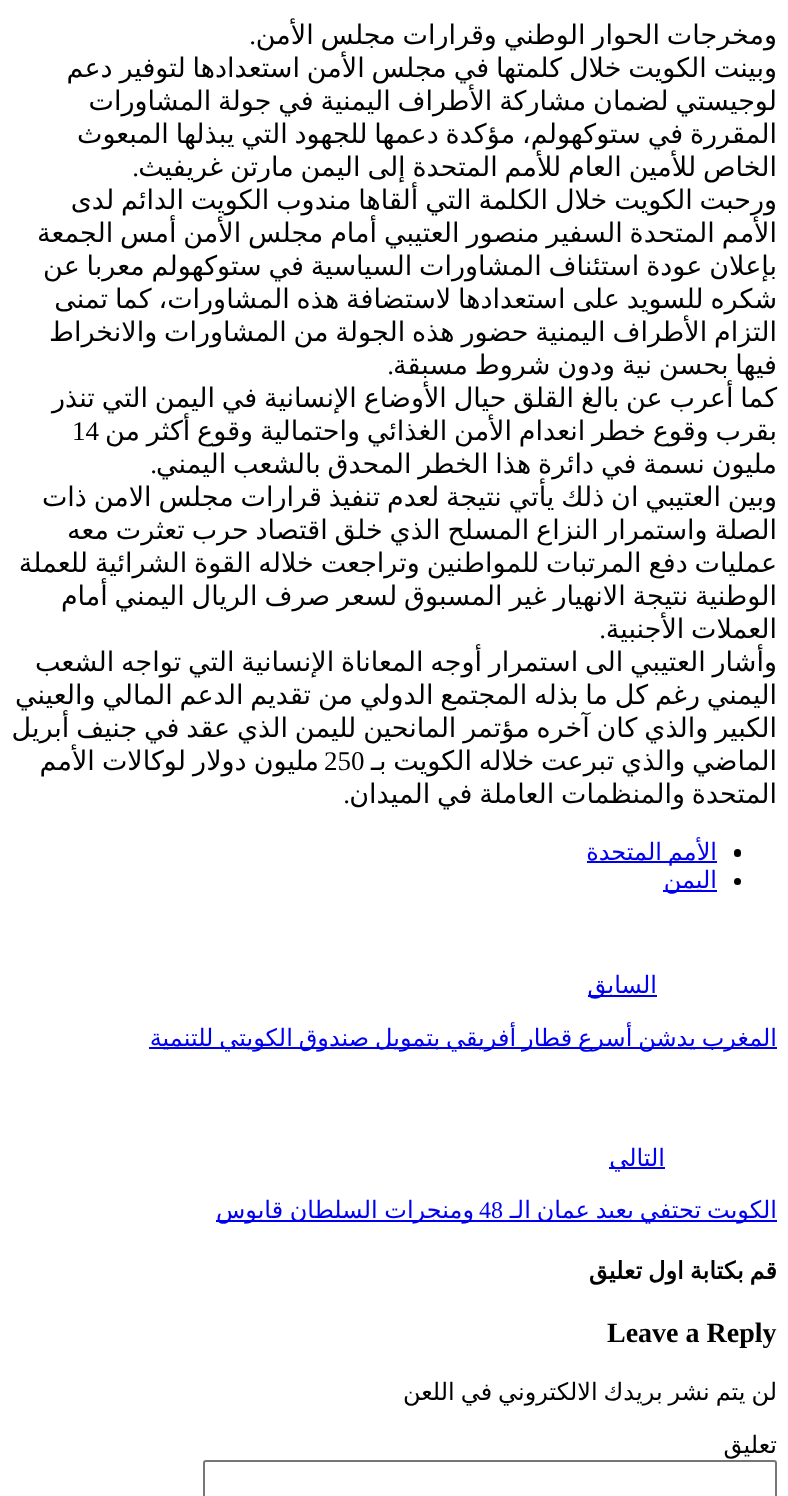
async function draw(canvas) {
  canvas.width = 788;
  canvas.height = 1496;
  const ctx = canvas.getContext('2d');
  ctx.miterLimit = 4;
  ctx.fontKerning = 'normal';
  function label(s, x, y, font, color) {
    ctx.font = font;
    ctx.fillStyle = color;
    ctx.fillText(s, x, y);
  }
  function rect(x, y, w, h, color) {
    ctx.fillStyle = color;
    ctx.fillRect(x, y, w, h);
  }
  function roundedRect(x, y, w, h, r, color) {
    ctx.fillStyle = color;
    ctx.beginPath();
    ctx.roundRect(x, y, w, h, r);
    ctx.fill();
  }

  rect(0, 0, 788, 1496, '#fff');
  ctx.wordSpacing = '-1.75px';
  ctx.direction = 'rtl';
  label('ومخرجات الحوار الوطني وقرارات مجلس الأمن', 777, 44, '27px DejaVu Sans', '#000');
  ctx.wordSpacing = '0px';
  label('.', 256, 44, '27px Liberation Serif', '#000');
  ctx.wordSpacing = '-1.75px';
  label('وبينت الكويت خلال كلمتها في مجلس الأمن استعدادها لتوفير دعم', 777, 77, '27px DejaVu Sans', '#000');
  label('لوجيستي لضمان مشاركة الأطراف اليمنية في جولة المشاورات', 777, 110, '27px DejaVu Sans', '#000');
  label('المقررة في ستوكهولم، مؤكدة دعمها للجهود التي يبذلها المبعوث', 777, 143, '27px DejaVu Sans', '#000');
  label('الخاص للأمين العام للأمم المتحدة إلى اليمن مارتن غريفيث', 777, 176, '27px DejaVu Sans', '#000');
  ctx.wordSpacing = '0px';
  label('.', 139, 176, '27px Liberation Serif', '#000');
  ctx.wordSpacing = '-1.75px';
  label('ورحبت الكويت خلال الكلمة التي ألقاها مندوب الكويت الدائم لدى', 777, 209, '27px DejaVu Sans', '#000');
  label('الأمم المتحدة السفير منصور العتيبي أمام مجلس الأمن أمس الجمعة', 777, 242, '27px DejaVu Sans', '#000');
  label('بإعلان عودة استئناف المشاورات السياسية في ستوكهولم معربا عن', 777, 275, '27px DejaVu Sans', '#000');
  label('شكره للسويد على استعدادها لاستضافة هذه المشاورات، كما تمنى', 777, 308, '27px DejaVu Sans', '#000');
  label('التزام الأطراف اليمنية حضور هذه الجولة من المشاورات والانخراط', 777, 341, '27px DejaVu Sans', '#000');
  label('فيها بحسن نية ودون شروط مسبقة', 777, 374, '27px DejaVu Sans', '#000');
  ctx.wordSpacing = '0px';
  label('.', 394, 374, '27px Liberation Serif', '#000');
  ctx.wordSpacing = '-1.75px';
  label('كما أعرب عن بالغ القلق حيال الأوضاع الإنسانية في اليمن التي تنذر', 777, 407, '27px DejaVu Sans', '#000');
  label('بقرب وقوع خطر انعدام الأمن الغذائي واحتمالية وقوع أكثر من', 777, 440, '27px DejaVu Sans', '#000');
  ctx.wordSpacing = '0px';
  ctx.direction = 'ltr';
  label('14', 72, 440, '27px Liberation Serif', '#000');
  ctx.wordSpacing = '-1.75px';
  ctx.direction = 'rtl';
  label('مليون نسمة في دائرة هذا الخطر المحدق بالشعب اليمني', 777, 473, '27px DejaVu Sans', '#000');
  ctx.wordSpacing = '0px';
  label('.', 157, 473, '27px Liberation Serif', '#000');
  ctx.wordSpacing = '-1.75px';
  label('وبين العتيبي ان ذلك يأتي نتيجة لعدم تنفيذ قرارات مجلس الامن ذات', 777, 506, '27px DejaVu Sans', '#000');
  label('الصلة واستمرار النزاع المسلح الذي خلق اقتصاد حرب تعثرت معه', 777, 539, '27px DejaVu Sans', '#000');
  label('عمليات دفع المرتبات للمواطنين وتراجعت خلاله القوة الشرائية للعملة', 777, 572, '27px DejaVu Sans', '#000');
  label('الوطنية نتيجة الانهيار غير المسبوق لسعر صرف الريال اليمني أمام', 777, 605, '27px DejaVu Sans', '#000');
  label('العملات الأجنبية', 777, 638, '27px DejaVu Sans', '#000');
  ctx.wordSpacing = '0px';
  label('.', 606, 638, '27px Liberation Serif', '#000');
  ctx.wordSpacing = '-1.75px';
  label('وأشار العتيبي الى استمرار أوجه المعاناة الإنسانية التي تواجه الشعب', 777, 671, '27px DejaVu Sans', '#000');
  label('اليمني رغم كل ما بذله المجتمع الدولي من تقديم الدعم المالي والعيني', 777, 704, '27px DejaVu Sans', '#000');
  label('الكبير والذي كان آخره مؤتمر المانحين لليمن الذي عقد في جنيف أبريل', 777, 737, '27px DejaVu Sans', '#000');
  label('الماضي والذي تبرعت خلاله الكويت بـ', 777, 770, '27px DejaVu Sans', '#000');
  ctx.wordSpacing = '0px';
  ctx.direction = 'ltr';
  label('250', 324, 770, '27px Liberation Serif', '#000');
  ctx.wordSpacing = '-1.5px';
  ctx.direction = 'rtl';
  label('مليون دولار لوكالات الأمم', 319, 770, '27px DejaVu Sans', '#000');
  ctx.wordSpacing = '-1.75px';
  label('المتحدة والمنظمات العاملة في الميدان', 777, 803, '27px DejaVu Sans', '#000');
  ctx.wordSpacing = '0px';
  label('.', 350, 803, '27px Liberation Serif', '#000');
  roundedRect(734, 849, 7, 8, 3.5, '#000');
  rect(587, 861, 130, 2, '#00e');
  ctx.wordSpacing = '-1.75px';
  label('الأمم المتحدة', 717, 860, '24px DejaVu Sans', '#00e');
  ctx.fillStyle = '#000';
  ctx.beginPath();
  ctx.arc(737.5, 881.5, 3.5, 0, 2 * Math.PI);
  ctx.fill();
  rect(663, 890, 54, 2, '#00e');
  ctx.wordSpacing = '0px';
  label('اليمن', 717, 888, '24px DejaVu Sans', '#00e');
  rect(588, 995, 69, 2, '#00e');
  label('السابق', 657, 993, '24px DejaVu Sans', '#00e');
  rect(149, 1047, 628, 2, '#00e');
  ctx.wordSpacing = '-1.75px';
  label('المغرب يدشن أسرع قطار أفريقي بتمويل صندوق الكويتي للتنمية', 777, 1046, '24px DejaVu Sans', '#00e');
  rect(609, 1167, 56, 2, '#00e');
  ctx.wordSpacing = '0px';
  label('التالي', 665, 1166, '24px DejaVu Sans', '#00e');
  rect(216, 1220, 561, 2, '#00e');
  ctx.wordSpacing = '-1.75px';
  label('الكويت تحتفي بعيد عمان الـ', 777, 1218, '24px DejaVu Sans', '#00e');
  ctx.wordSpacing = '0px';
  ctx.direction = 'ltr';
  label('48', 479, 1218, '24px Liberation Serif', '#00e');
  ctx.wordSpacing = '-1px';
  ctx.direction = 'rtl';
  label('ومنجرات السلطان قابوس', 474, 1218, '24px DejaVu Sans', '#00e');
  ctx.wordSpacing = '-1.75px';
  label('قم بكتابة اول تعليق', 777, 1279, 'bold 24px DejaVu Sans', '#000');
  ctx.wordSpacing = '0px';
  ctx.direction = 'ltr';
  label('Leave a Reply', 607, 1342, 'bold 28px Liberation Serif', '#000');
  ctx.wordSpacing = '-1.75px';
  ctx.direction = 'rtl';
  label('لن يتم نشر بريدك الالكتروني في اللعن', 777, 1400, '24px DejaVu Sans', '#000');
  ctx.wordSpacing = '0px';
  label('تعليق', 777, 1453, '24px DejaVu Sans', '#000');
  ctx.beginPath();
  ctx.roundRect(204, 1461, 572, 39, 2);
  ctx.strokeStyle = '#767676';
  ctx.lineWidth = 2;
  ctx.stroke();
}

draw(document.querySelector('canvas'));
